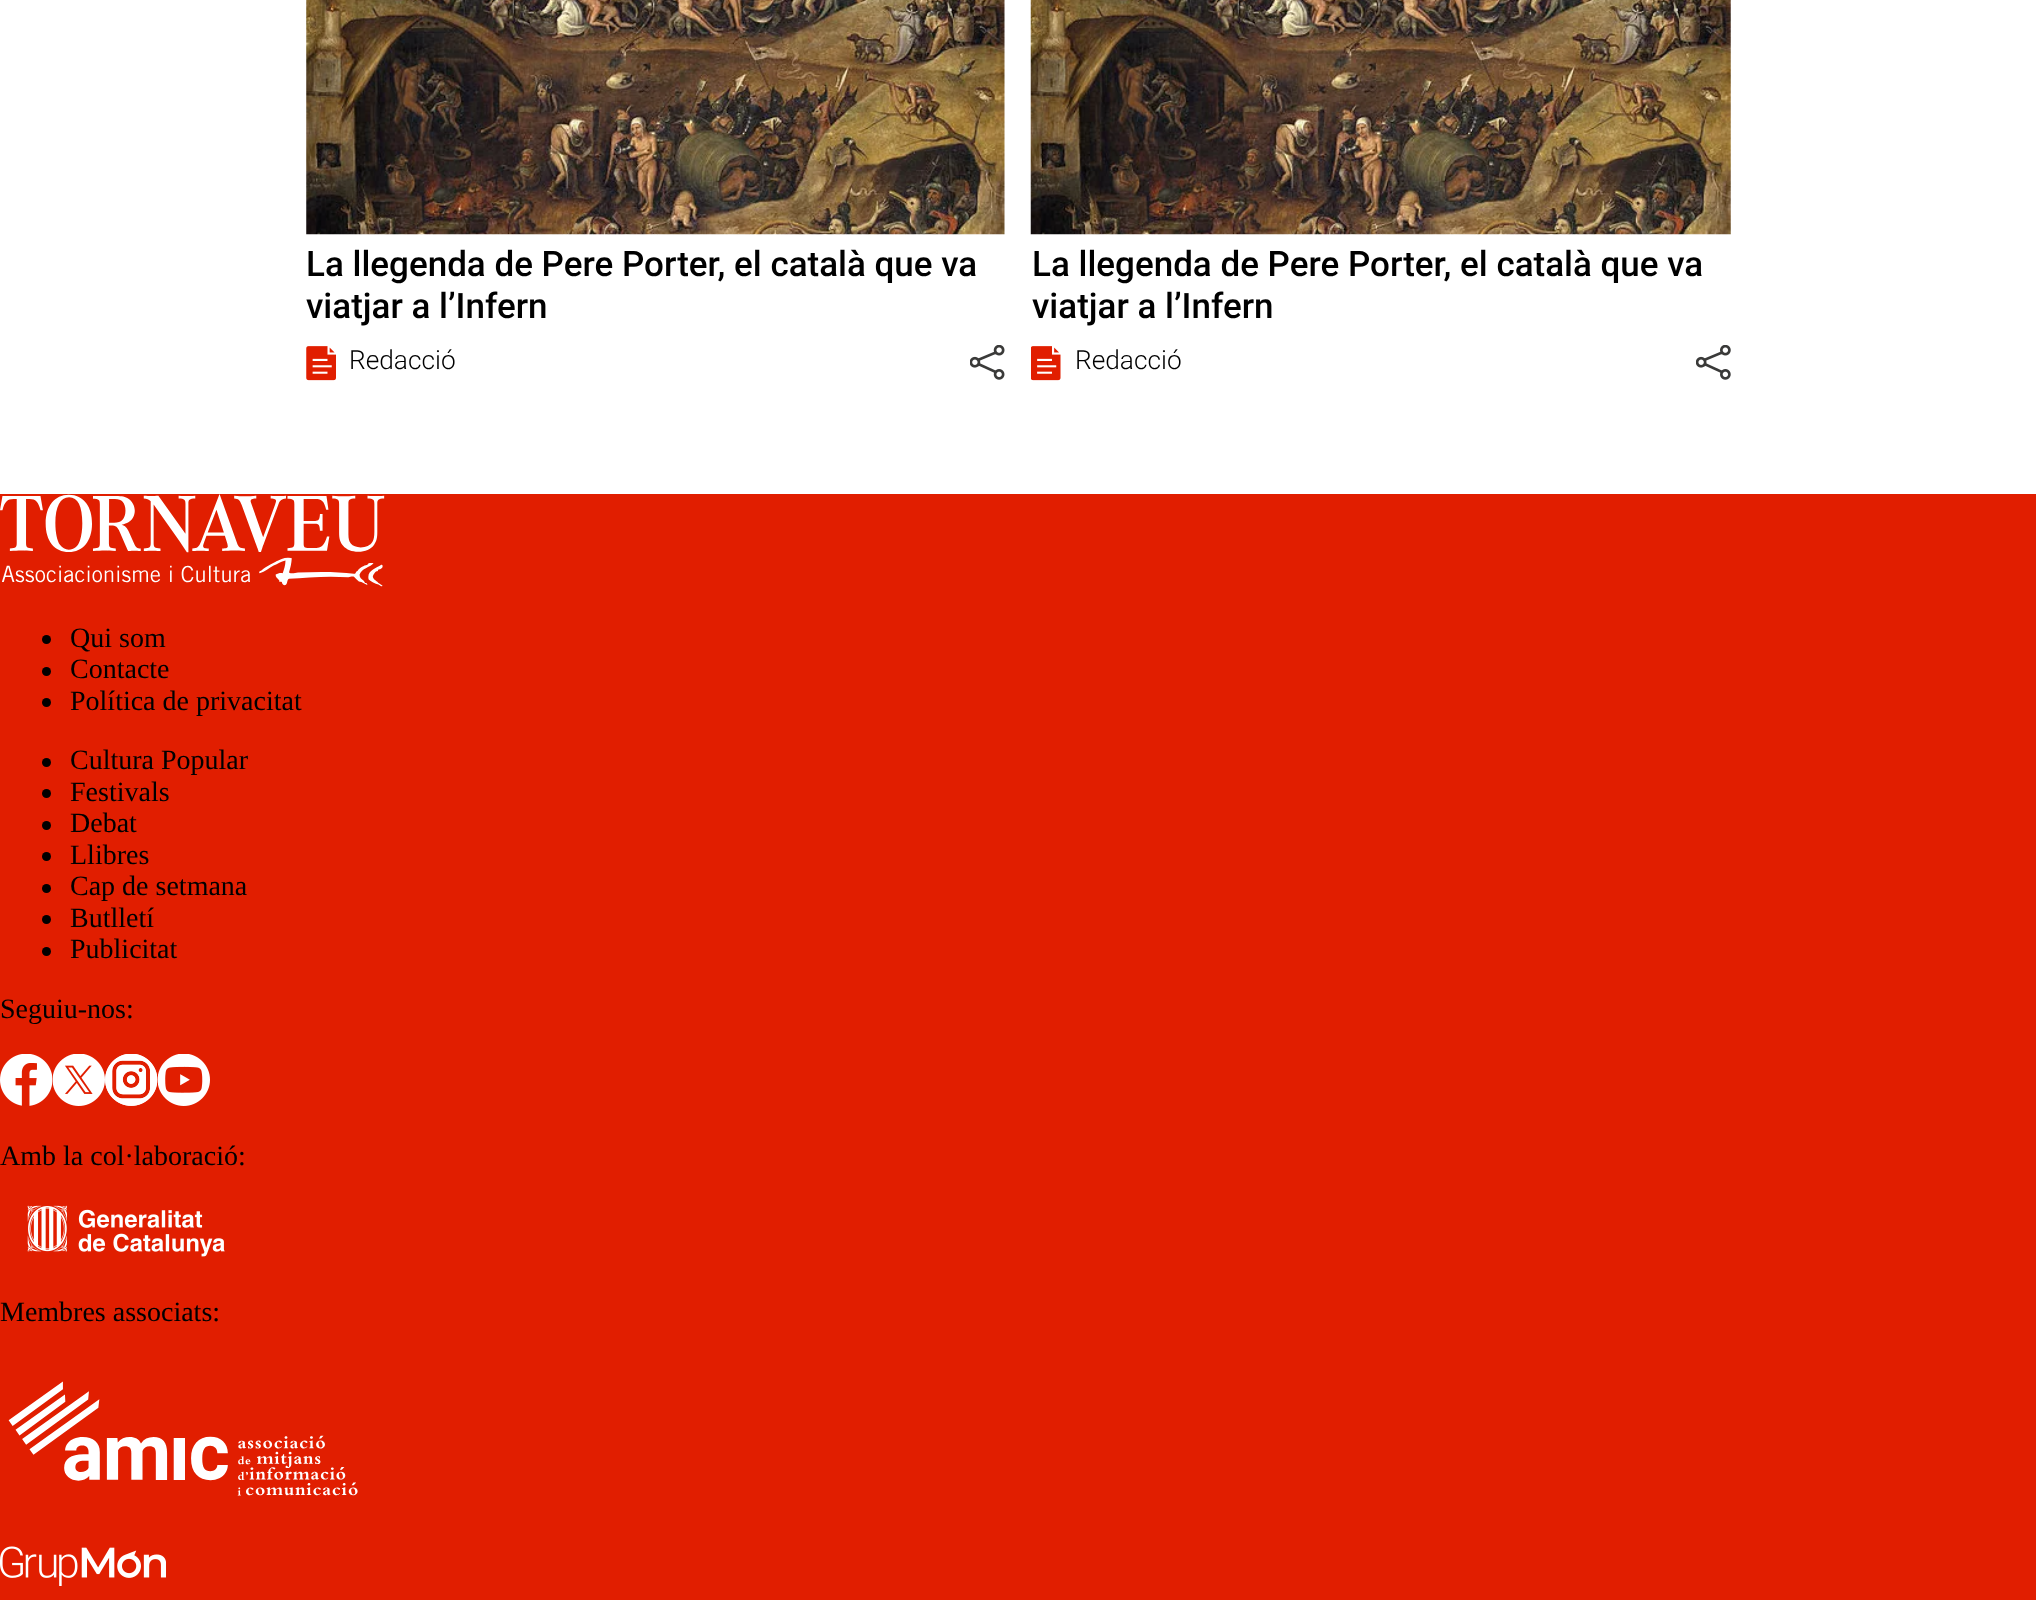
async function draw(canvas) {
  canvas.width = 2036;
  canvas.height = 1600;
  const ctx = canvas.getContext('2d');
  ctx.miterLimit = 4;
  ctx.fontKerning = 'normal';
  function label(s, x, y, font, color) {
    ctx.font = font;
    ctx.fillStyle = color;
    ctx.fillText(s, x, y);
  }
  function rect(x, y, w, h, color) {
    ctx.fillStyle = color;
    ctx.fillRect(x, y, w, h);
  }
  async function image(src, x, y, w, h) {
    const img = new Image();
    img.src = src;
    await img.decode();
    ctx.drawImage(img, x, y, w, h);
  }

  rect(0, 0, 2036, 1600, '#fff');
  await image('assets/img1.png', 306, 0, 699, 235);
  label('La llegenda de Pere Porter, el català que va', 306, 276, '500 35px Roboto', '#000');
  label('viatjar a l’Infern', 306, 318, '500 35px Roboto', '#000');
  await image('assets/img2.png', 306, 346, 30, 35);
  label('Redacció', 349, 369, '300 26.25px Roboto', '#000');
  await image('assets/img3.png', 970, 345, 35, 35);
  await image('assets/img4.png', 1030, 0, 701, 235);
  label('La llegenda de Pere Porter, el català que va', 1032, 276, '500 35px Roboto', '#000');
  label('viatjar a l’Infern', 1032, 318, '500 35px Roboto', '#000');
  await image('assets/img5.png', 1031, 346, 30, 35);
  label('Redacció', 1075, 369, '300 26.25px Roboto', '#000');
  await image('assets/img6.png', 1696, 345, 35, 35);
  rect(0, 494, 2036, 1106, '#e11e00');
  await image('assets/img7.png', 0, 494, 385, 93);
  ctx.fillStyle = '#000';
  ctx.beginPath();
  ctx.arc(46.5, 639.5, 4.5, 0, 2 * Math.PI);
  ctx.fill();
  label('Qui som', 70, 647, '28px Liberation Serif', '#000');
  ctx.beginPath();
  ctx.arc(46.5, 671.5, 4.5, 0, 2 * Math.PI);
  ctx.fill();
  label('Contacte', 70, 678, '28px Liberation Serif', '#000');
  ctx.beginPath();
  ctx.arc(46.5, 702.5, 4.5, 0, 2 * Math.PI);
  ctx.fill();
  label('Política de privacitat', 70, 710, '28px Liberation Serif', '#000');
  ctx.beginPath();
  ctx.arc(46.5, 762.5, 4.5, 0, 2 * Math.PI);
  ctx.fill();
  label('Cultura Popular', 70, 769, '28px Liberation Serif', '#000');
  ctx.beginPath();
  ctx.arc(46.5, 793.5, 4.5, 0, 2 * Math.PI);
  ctx.fill();
  label('Festivals', 70, 801, '28px Liberation Serif', '#000');
  ctx.beginPath();
  ctx.arc(46.5, 825.5, 4.5, 0, 2 * Math.PI);
  ctx.fill();
  label('Debat', 70, 832, '28px Liberation Serif', '#000');
  ctx.beginPath();
  ctx.arc(46.5, 856.5, 4.5, 0, 2 * Math.PI);
  ctx.fill();
  label('Llibres', 70, 864, '28px Liberation Serif', '#000');
  ctx.beginPath();
  ctx.arc(46.5, 888.5, 4.5, 0, 2 * Math.PI);
  ctx.fill();
  label('Cap de setmana', 70, 895, '28px Liberation Serif', '#000');
  ctx.beginPath();
  ctx.arc(46.5, 919.5, 4.5, 0, 2 * Math.PI);
  ctx.fill();
  label('Butlletí', 70, 927, '28px Liberation Serif', '#000');
  ctx.beginPath();
  ctx.arc(46.5, 951.5, 4.5, 0, 2 * Math.PI);
  ctx.fill();
  label('Publicitat', 70, 958, '28px Liberation Serif', '#000');
  label('Seguiu-nos:', 0, 1018, '28px Liberation Serif', '#000');
  await image('assets/img8.png', 0, 1054, 53, 52);
  await image('assets/img9.png', 53, 1054, 52, 52);
  await image('assets/img10.png', 105, 1054, 53, 52);
  await image('assets/img11.png', 158, 1054, 52, 52);
  label('Amb la col·laboració:', 0, 1165, '28px Liberation Serif', '#000');
  await image('assets/img12.png', 27, 1205, 198, 52);
  label('Membres associats:', 0, 1321, '28px Liberation Serif', '#000');
  await image('assets/img13.png', 8, 1381, 350, 115);
  await image('assets/img14.png', 0, 1546, 166, 40);
}

draw(document.querySelector('canvas'));
